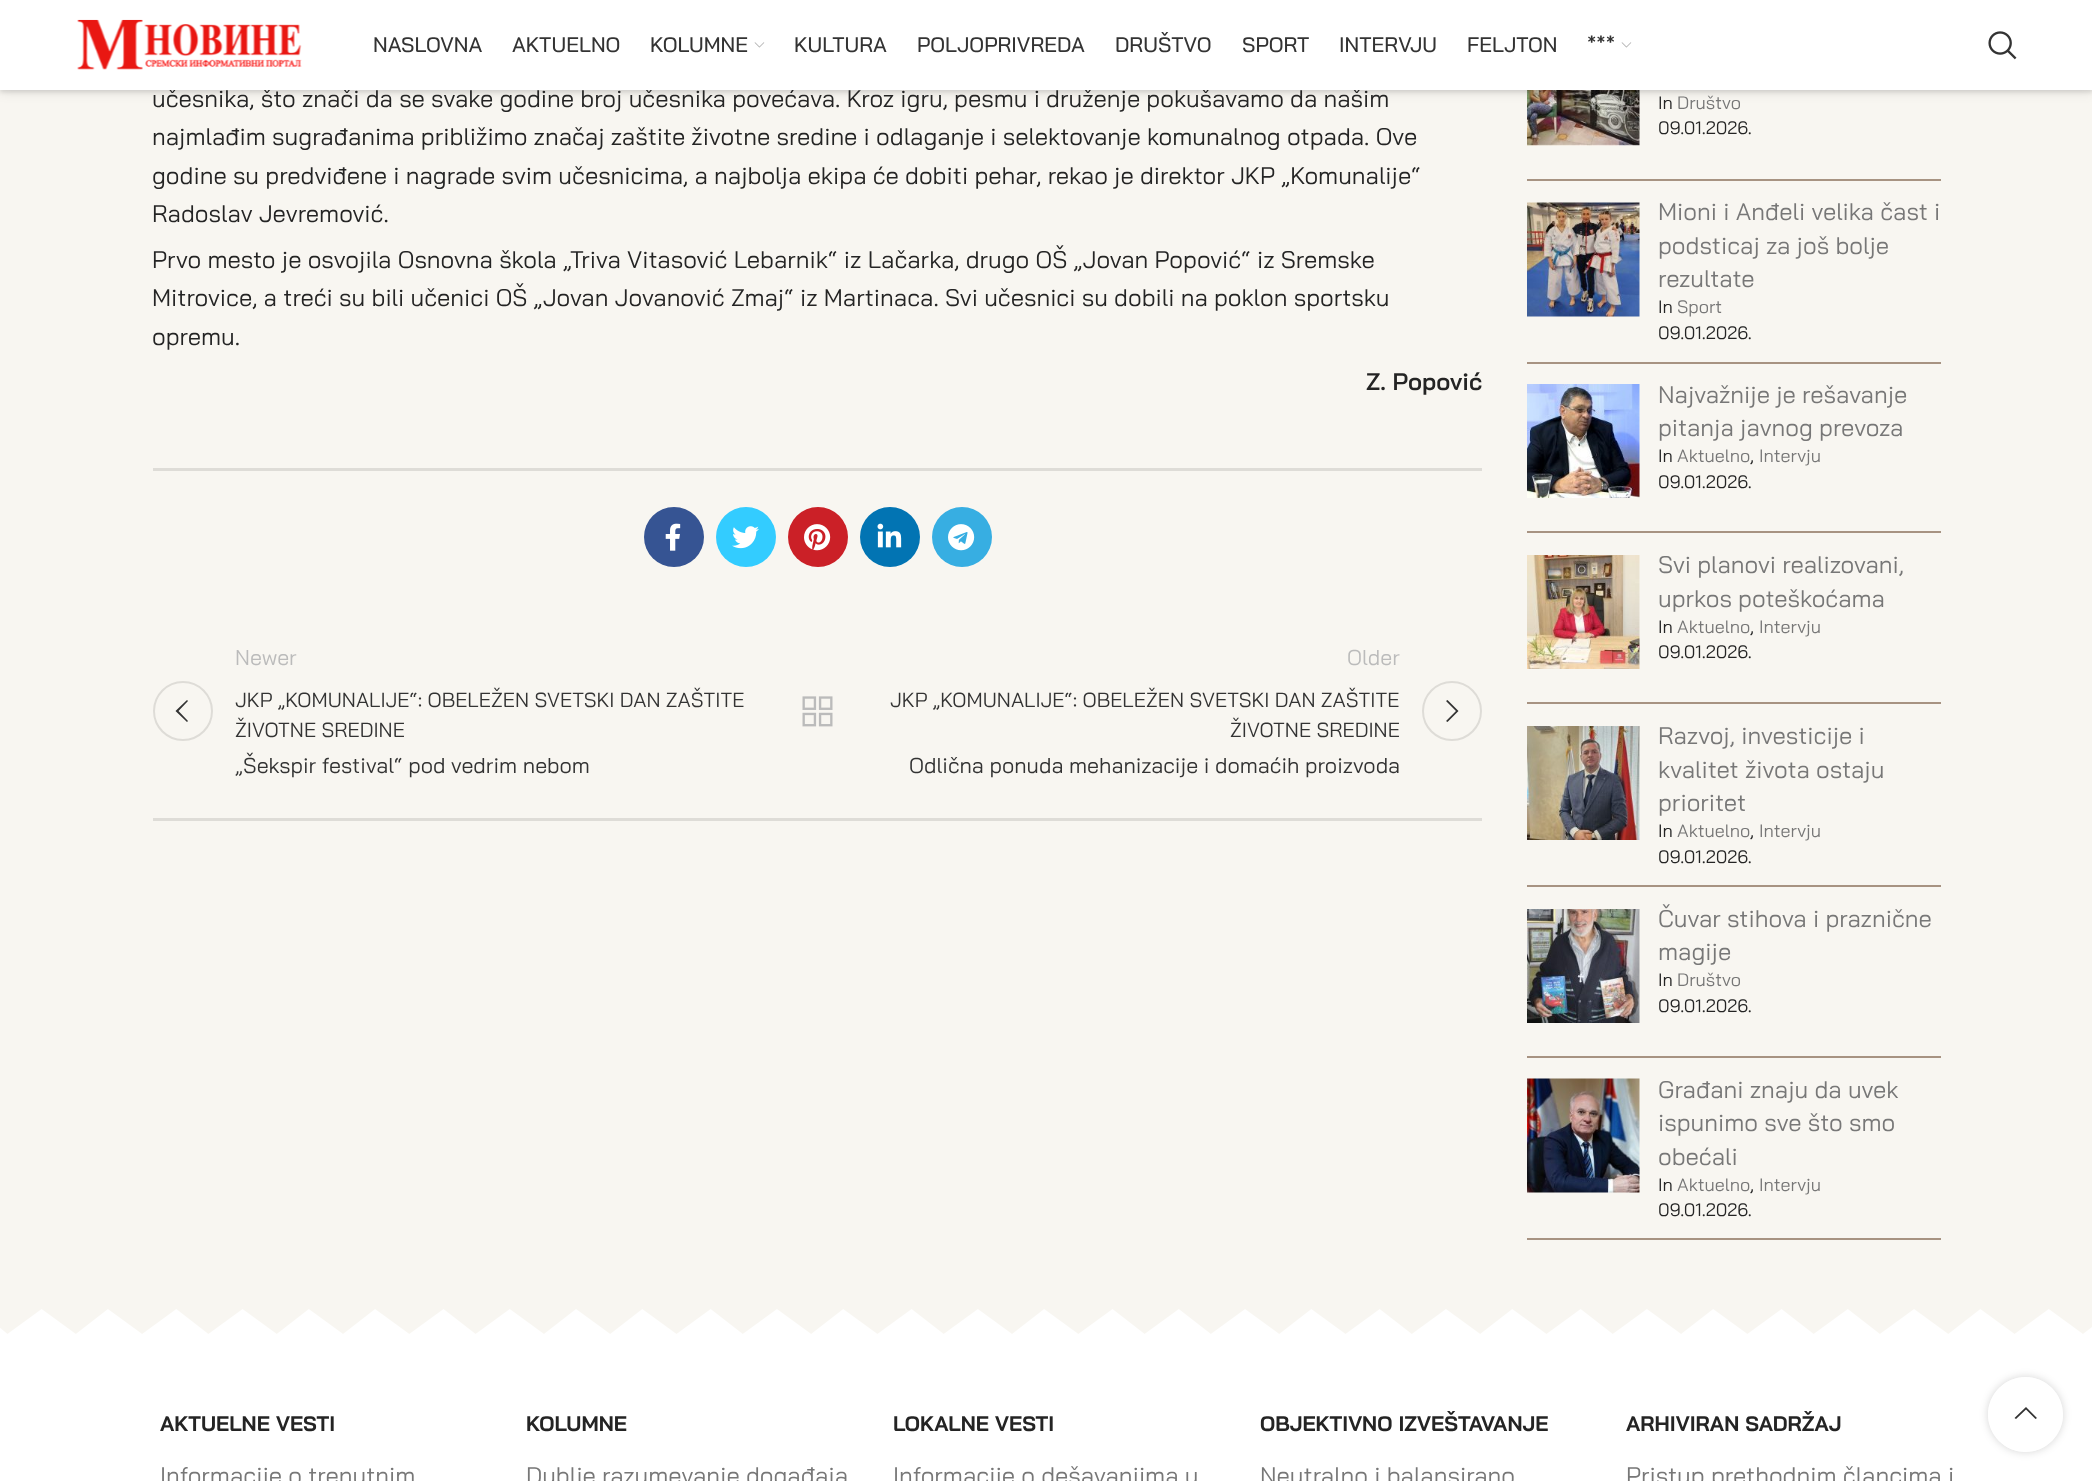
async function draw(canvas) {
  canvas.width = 2092;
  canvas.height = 1481;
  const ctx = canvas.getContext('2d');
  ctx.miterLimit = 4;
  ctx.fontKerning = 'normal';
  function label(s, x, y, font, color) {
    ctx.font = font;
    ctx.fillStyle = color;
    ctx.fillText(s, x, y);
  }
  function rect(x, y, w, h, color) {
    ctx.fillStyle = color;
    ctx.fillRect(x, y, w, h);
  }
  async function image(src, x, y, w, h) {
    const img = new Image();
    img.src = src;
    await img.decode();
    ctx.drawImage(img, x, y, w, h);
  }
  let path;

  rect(0, 0, 2092, 1481, '#f8f6f1');
  await image('assets/img10.png', 1527, 90, 113, 56);
  ctx.fillStyle = '#0000001a';
  ctx.filter = 'blur(2px)';
  ctx.beginPath();
  ctx.rect(0, 2, 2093, 90);
  ctx.fill();
  ctx.filter = 'none';
  ctx.filter = 'blur(6px)';
  ctx.beginPath();
  ctx.rect(0, 2, 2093, 90);
  ctx.fill();
  ctx.filter = 'none';
  label('učesnika, što znači da se svake godine broj učesnika povećava. Kroz igru, pesmu i druženje pokušavamo da našim', 152, 107, '24px Bai Jamjuree', '#242424');
  rect(0, 0, 2092, 90, '#fff');
  await image('assets/img1.png', 77, 19, 225, 51);
  label('NASLOVNA', 373, 52, '500 21px Bai Jamjuree', '#333');
  label('AKTUELNO', 512, 52, '500 21px Bai Jamjuree', '#333');
  label('KOLUMNE', 650, 52, '500 21px Bai Jamjuree', '#333');
  await image('assets/img2.png', 754, 42, 11, 6);
  label('KULTURA', 794, 52, '500 21px Bai Jamjuree', '#333');
  label('POLJOPRIVREDA', 917, 52, '500 21px Bai Jamjuree', '#333');
  label('DRUŠTVO', 1115, 52, '500 21px Bai Jamjuree', '#333');
  label('SPORT', 1242, 52, '500 21px Bai Jamjuree', '#333');
  label('INTERVJU', 1339, 52, '500 21px Bai Jamjuree', '#333');
  label('FELJTON', 1467, 52, '500 21px Bai Jamjuree', '#333');
  label('***', 1587, 52, '500 21px Bai Jamjuree', '#333');
  await image('assets/img2.png', 1621, 42, 11, 6);
  await image('assets/img3.png', 1988, 31, 29, 29);
  label('najmlađim sugrađanima približimo značaj zaštite životne sredine i odlaganje i selektovanje komunalnog otpada. Ove', 152, 145, '24px Bai Jamjuree', '#242424');
  label('godine su predviđene i nagrade svim učesnicima, a najbolja ekipa će dobiti pehar, rekao je direktor JKP „Komunalije“', 152, 184, '24px Bai Jamjuree', '#242424');
  label('Radoslav Jevremović.', 152, 222, '24px Bai Jamjuree', '#242424');
  label('Prvo mesto je osvojila Osnovna škola „Triva Vitasović Lebarnik“ iz Lačarka, drugo OŠ „Jovan Popović“ iz Sremske', 152, 268, '24px Bai Jamjuree', '#242424');
  label('Mitrovice, a treći su bili učenici OŠ „Jovan Jovanović Zmaj“ iz Martinaca. Svi učesnici su dobili na poklon sportsku', 152, 306, '24px Bai Jamjuree', '#242424');
  label('opremu.', 152, 345, '24px Bai Jamjuree', '#242424');
  label('Z. Popović', 1366, 390, '600 24px Bai Jamjuree', '#242424');
  rect(153, 468, 1329, 3, '#dedcd7');
  ctx.fillStyle = '#365493';
  ctx.beginPath();
  ctx.arc(674, 537, 30, 0, 2 * Math.PI);
  ctx.fill();
  await image('assets/img4.png', 665, 523, 16, 28);
  ctx.fillStyle = '#3cf';
  ctx.beginPath();
  ctx.arc(746, 537, 30, 0, 2 * Math.PI);
  ctx.fill();
  await image('assets/img5.png', 732, 526, 27, 23);
  ctx.fillStyle = '#cb2027';
  ctx.beginPath();
  ctx.arc(818, 537, 30, 0, 2 * Math.PI);
  ctx.fill();
  await image('assets/img6.png', 804, 524, 27, 27);
  ctx.fillStyle = '#0274b3';
  ctx.beginPath();
  ctx.arc(890, 537, 30, 0, 2 * Math.PI);
  ctx.fill();
  await image('assets/img7.png', 877, 523, 25, 25);
  ctx.fillStyle = '#37aee2';
  ctx.beginPath();
  ctx.arc(962, 537, 30, 0, 2 * Math.PI);
  ctx.fill();
  await image('assets/img8.png', 948, 524, 27, 27);
  rect(153, 818, 1329, 3, '#dedcd7');
  label('Newer', 235, 665, '21.6px Bai Jamjuree', '#bbb');
  ctx.beginPath();
  ctx.arc(183, 711, 29, 0, 2 * Math.PI);
  ctx.strokeStyle = '#dedcd7';
  ctx.lineWidth = 2;
  ctx.stroke();
  ctx.fillStyle = '#333';
  path = new Path2D('M188 701L187 700L175.5 711L187 722L188 721L178.5 711Z');
  ctx.fill(path);
  label('JKP „KOMUNALIJE“: OBELEŽEN SVETSKI DAN ZAŠTITE', 235, 707, '20.4px Bai Jamjuree', '#333');
  label('ŽIVOTNE SREDINE', 235, 737, '20.4px Bai Jamjuree', '#333');
  label('„Šekspir festival“ pod vedrim nebom', 235, 773, '21.6px Bai Jamjuree', '#333');
  await image('assets/img9.png', 802, 696, 31, 31);
  label('Older', 1347, 665, '21.6px Bai Jamjuree', '#bbb');
  label('JKP „KOMUNALIJE“: OBELEŽEN SVETSKI DAN ZAŠTITE', 890, 707, '20.4px Bai Jamjuree', '#333');
  label('ŽIVOTNE SREDINE', 1230, 737, '20.4px Bai Jamjuree', '#333');
  label('Odlična ponuda mehanizacije i domaćih proizvoda', 909, 773, '21.6px Bai Jamjuree', '#333');
  ctx.beginPath();
  ctx.arc(1452, 711, 29, 0, 2 * Math.PI);
  ctx.stroke();
  path = new Path2D('M1446 701L1456 711L1446 721L1447.5 722L1458.5 711L1447.5 700Z');
  ctx.fill(path);
  rect(1527, 179, 414, 2, '#a79382');
  label('In', 1658, 109, '18px Bai Jamjuree', '#242424');
  label('Društvo', 1677, 109, '18px Bai Jamjuree', '#777');
  label('09.01.2026.', 1658, 134, '18px Bai Jamjuree', '#242424');
  rect(1527, 362, 414, 2, '#a79382');
  await image('assets/img11.png', 1527, 202, 113, 115);
  label('Mioni i Anđeli velika čast i', 1658, 220, '24px Bai Jamjuree', '#777');
  label('podsticaj za još bolje', 1658, 254, '24px Bai Jamjuree', '#777');
  label('rezultate', 1658, 287, '24px Bai Jamjuree', '#777');
  label('In', 1658, 313, '18px Bai Jamjuree', '#242424');
  label('Sport', 1677, 313, '18px Bai Jamjuree', '#777');
  label('09.01.2026.', 1658, 339, '18px Bai Jamjuree', '#242424');
  rect(1527, 531, 414, 2, '#a79382');
  await image('assets/img12.png', 1527, 384, 113, 114);
  label('Najvažnije je rešavanje', 1658, 403, '24px Bai Jamjuree', '#777');
  label('pitanja javnog prevoza', 1658, 436, '24px Bai Jamjuree', '#777');
  label('In', 1658, 462, '18px Bai Jamjuree', '#242424');
  label('Aktuelno', 1677, 462, '18px Bai Jamjuree', '#777');
  label(',', 1750, 462, '18px Bai Jamjuree', '#242424');
  label('Intervju', 1759, 462, '18px Bai Jamjuree', '#777');
  label('09.01.2026.', 1658, 488, '18px Bai Jamjuree', '#242424');
  rect(1527, 702, 414, 2, '#a79382');
  await image('assets/img13.png', 1527, 555, 113, 114);
  label('Svi planovi realizovani,', 1658, 573, '24px Bai Jamjuree', '#777');
  label('uprkos poteškoćama', 1658, 607, '24px Bai Jamjuree', '#777');
  label('In', 1658, 633, '18px Bai Jamjuree', '#242424');
  label('Aktuelno', 1677, 633, '18px Bai Jamjuree', '#777');
  label(',', 1750, 633, '18px Bai Jamjuree', '#242424');
  label('Intervju', 1759, 633, '18px Bai Jamjuree', '#777');
  label('09.01.2026.', 1658, 658, '18px Bai Jamjuree', '#242424');
  rect(1527, 885, 414, 2, '#a79382');
  await image('assets/img14.png', 1527, 726, 113, 114);
  label('Razvoj, investicije i', 1658, 744, '24px Bai Jamjuree', '#777');
  label('kvalitet života ostaju', 1658, 778, '24px Bai Jamjuree', '#777');
  label('prioritet', 1658, 811, '24px Bai Jamjuree', '#777');
  label('In', 1658, 837, '18px Bai Jamjuree', '#242424');
  label('Aktuelno', 1677, 837, '18px Bai Jamjuree', '#777');
  label(',', 1750, 837, '18px Bai Jamjuree', '#242424');
  label('Intervju', 1759, 837, '18px Bai Jamjuree', '#777');
  label('09.01.2026.', 1658, 863, '18px Bai Jamjuree', '#242424');
  rect(1527, 1056, 414, 2, '#a79382');
  await image('assets/img15.png', 1527, 909, 113, 114);
  label('Čuvar stihova i praznične', 1658, 927, '24px Bai Jamjuree', '#777');
  label('magije', 1658, 960, '24px Bai Jamjuree', '#777');
  label('In', 1658, 986, '18px Bai Jamjuree', '#242424');
  label('Društvo', 1677, 986, '18px Bai Jamjuree', '#777');
  label('09.01.2026.', 1658, 1012, '18px Bai Jamjuree', '#242424');
  rect(1527, 1238, 414, 2, '#a79382');
  await image('assets/img16.png', 1527, 1078, 113, 115);
  label('Građani znaju da uvek', 1658, 1098, '24px Bai Jamjuree', '#777');
  label('ispunimo sve što smo', 1658, 1131, '24px Bai Jamjuree', '#777');
  label('obećali', 1658, 1165, '24px Bai Jamjuree', '#777');
  label('In', 1658, 1191, '18px Bai Jamjuree', '#242424');
  label('Aktuelno', 1677, 1191, '18px Bai Jamjuree', '#777');
  label(',', 1750, 1191, '18px Bai Jamjuree', '#242424');
  label('Intervju', 1759, 1191, '18px Bai Jamjuree', '#777');
  label('09.01.2026.', 1658, 1216, '18px Bai Jamjuree', '#242424');
  rect(0, 1309, 2092, 172, '#fff');
  await image('assets/img17.png', 0, 1290, 2092, 44);
  label('AKTUELNE VESTI', 160, 1431, 'bold 21px Bai Jamjuree', '#242424');
  label('Informacije o trenutnim', 160, 1484, '24px Bai Jamjuree', '#777');
  label('KOLUMNE', 526, 1431, 'bold 21px Bai Jamjuree', '#242424');
  label('Dublje razumevanje događaja', 526, 1484, '24px Bai Jamjuree', '#777');
  label('LOKALNE VESTI', 893, 1431, 'bold 21px Bai Jamjuree', '#242424');
  label('Informacije o dešavanjima u', 893, 1484, '24px Bai Jamjuree', '#777');
  label('OBJEKTIVNO IZVEŠTAVANJE', 1260, 1431, 'bold 21px Bai Jamjuree', '#242424');
  label('Neutralno i balansirano', 1260, 1484, '24px Bai Jamjuree', '#777');
  label('ARHIVIRAN SADRŽAJ', 1626, 1431, 'bold 21px Bai Jamjuree', '#242424');
  label('Pristup prethodnim člancima i', 1626, 1484, '24px Bai Jamjuree', '#777');
  ctx.save();
  path = new Path2D('M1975 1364H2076V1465H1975ZM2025.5 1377C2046 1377 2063 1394 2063 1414.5C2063 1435 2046 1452 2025.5 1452C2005 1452 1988 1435 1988 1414.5C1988 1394 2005 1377 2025.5 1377Z');
  ctx.clip(path, 'evenodd');
  ctx.fillStyle = '#0000002b';
  ctx.filter = 'blur(4px)';
  ctx.beginPath();
  ctx.roundRect(1988, 1377, 75, 75, 37.5);
  ctx.fill();
  ctx.filter = 'none';
  ctx.restore();
  ctx.fillStyle = '#ffffffe6';
  ctx.beginPath();
  ctx.arc(2025.5, 1414.5, 37.5, 0, 2 * Math.PI);
  ctx.fill();
  ctx.fillStyle = '#333';
  path = new Path2D('M2035.5 1419L2037 1418L2026 1407L2014.5 1418L2016 1419L2026 1409.5Z');
  ctx.fill(path);
}

draw(document.querySelector('canvas'));
